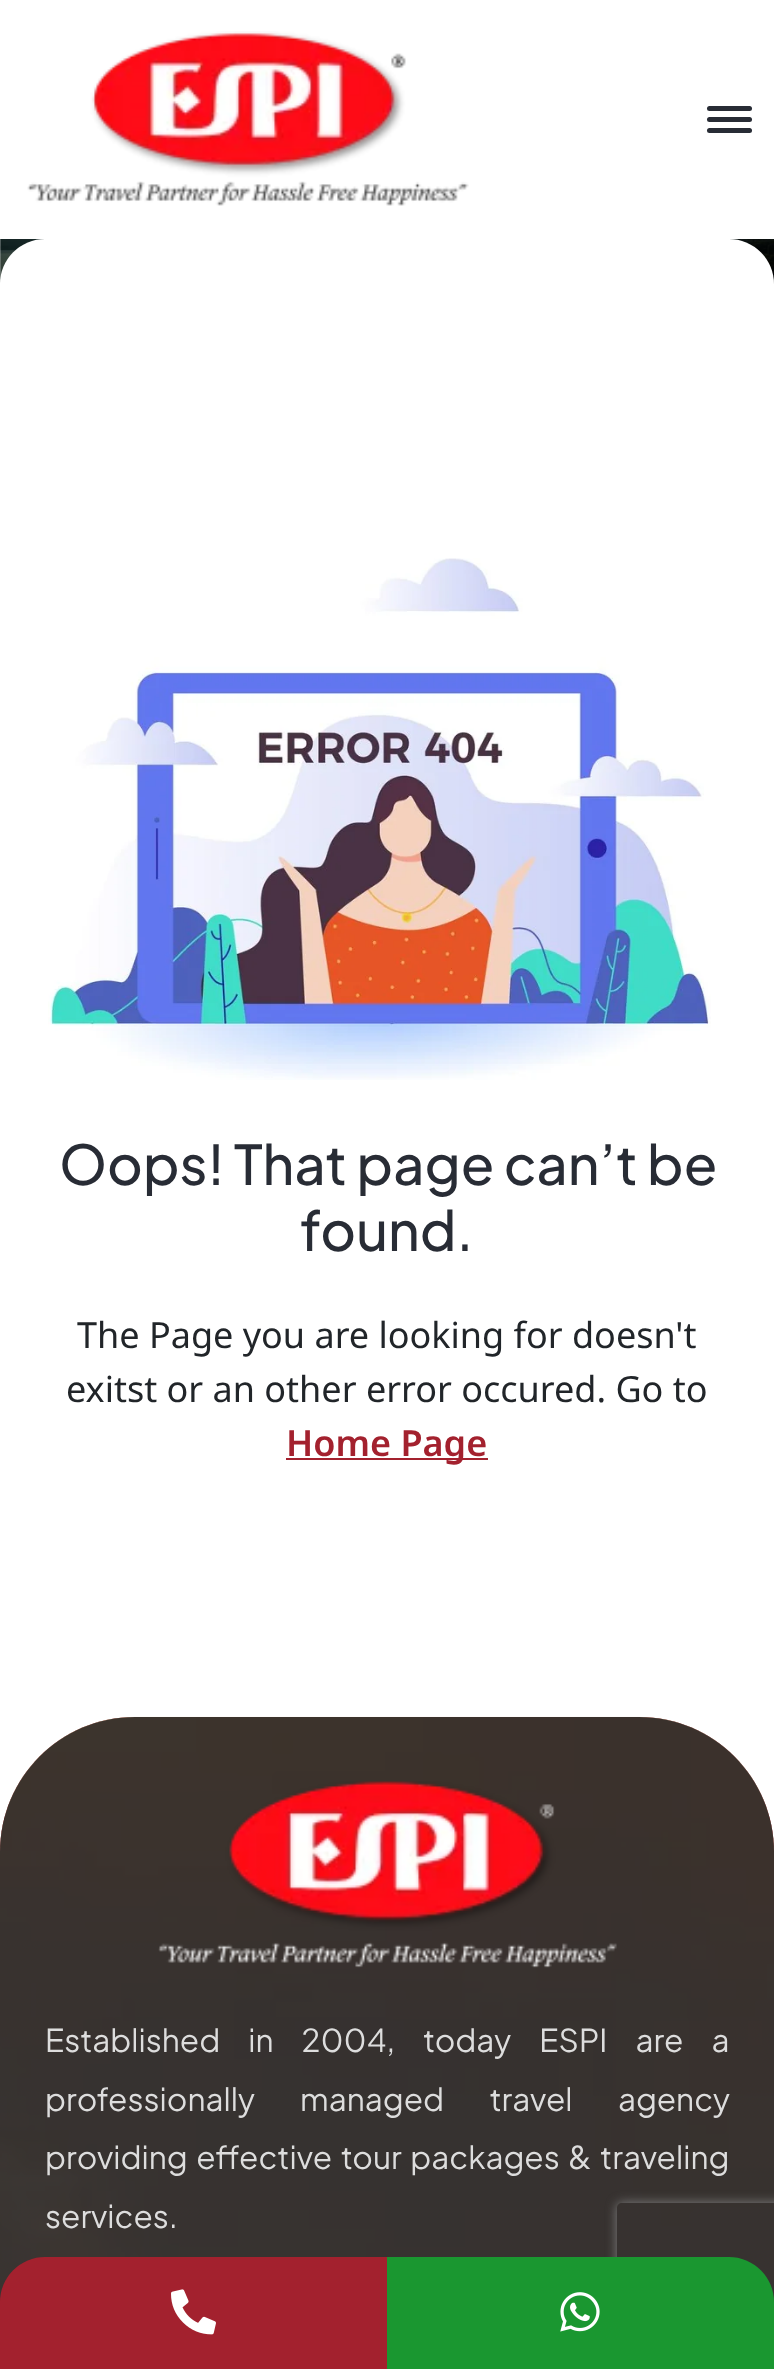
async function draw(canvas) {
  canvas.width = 774;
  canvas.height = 2369;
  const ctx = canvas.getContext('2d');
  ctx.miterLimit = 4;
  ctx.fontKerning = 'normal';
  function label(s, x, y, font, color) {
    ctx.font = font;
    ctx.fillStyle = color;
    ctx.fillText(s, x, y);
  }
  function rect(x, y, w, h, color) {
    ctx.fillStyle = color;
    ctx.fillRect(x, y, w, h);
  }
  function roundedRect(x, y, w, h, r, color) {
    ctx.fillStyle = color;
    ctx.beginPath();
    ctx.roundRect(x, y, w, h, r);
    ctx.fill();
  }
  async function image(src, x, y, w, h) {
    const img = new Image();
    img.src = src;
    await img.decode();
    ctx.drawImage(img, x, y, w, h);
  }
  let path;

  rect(0, 0, 774, 2369, '#fff');
  await image('assets/img1.png', 27, 31, 442, 175);
  roundedRect(707, 106, 45, 5, 2.5, '#282c35');
  roundedRect(707, 117, 45, 5, 2.5, '#282c35');
  roundedRect(707, 128, 45, 5, 2.5, '#282c35');
  await image('assets/img2.png', 0, 239, 774, 45);
  ctx.fillStyle = '#fff';
  ctx.beginPath();
  ctx.roundRect(0, 239, 774, 90, [45, 45, 0, 0]);
  ctx.fill();
  await image('assets/img3.png', 48, 558, 663, 522);
  label('Oops! That page can’t be', 59, 1185, '500 54.75px Plus Jakarta Sans', '#282c35');
  label('found.', 300, 1251, '500 54.75px Plus Jakarta Sans', '#282c35');
  label('The Page you are looking for doesn\'t', 77, 1348, '36px Noto Sans', '#212529');
  label('exitst or an other error occured. Go to', 66, 1402, '36px Noto Sans', '#212529');
  rect(286, 1458, 202, 2, '#a3212e');
  label('Home Page', 286, 1456, '600 36px Noto Sans', '#a3212e');
  path = new Path2D('M135 1717H639C713.5 1717 774 1777.5 774 1852V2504H0V1852C0 1777.5 60.5 1717 135 1717Z');
  ctx.fill(path);
  await image('assets/img4.png', 0, 1716, 774, 586);
  ctx.fillStyle = '#000000bd';
  path = new Path2D('M135 1717H639C713.5 1717 774 1777.5 774 1852V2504H0V1852C0 1777.5 60.5 1717 135 1717Z');
  ctx.fill(path);
  await image('assets/img5.png', 158, 1781, 459, 187);
  ctx.wordSpacing = '22.75px';
  label('Established in 2004, today ESPI are a', 45, 2052, '31.5px Plus Jakarta Sans', '#ddd');
  ctx.wordSpacing = '40px';
  label('professionally managed travel agency', 45, 2111, '31.5px Plus Jakarta Sans', '#ddd');
  ctx.wordSpacing = '3.25px';
  label('providing effective tour packages & traveling', 45, 2169, '31.5px Plus Jakarta Sans', '#ddd');
  ctx.wordSpacing = '0px';
  label('services.', 45, 2228, '31.5px Plus Jakarta Sans', '#ddd');
  ctx.save();
  path = new Path2D('M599 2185H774V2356H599ZM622 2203H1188C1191 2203 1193 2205 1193 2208V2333C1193 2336 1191 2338 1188 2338H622C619 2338 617 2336 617 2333V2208C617 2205 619 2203 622 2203Z');
  ctx.clip(path, 'evenodd');
  ctx.fillStyle = '#808080';
  ctx.filter = 'blur(5.5px)';
  ctx.beginPath();
  ctx.roundRect(617, 2203, 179, 135, 5);
  ctx.fill();
  ctx.filter = 'none';
  ctx.restore();
  ctx.fillStyle = '#a3212e';
  ctx.beginPath();
  ctx.roundRect(0, 2257, 387, 112, [45, 0, 0, 0]);
  ctx.fill();
  await image('assets/img6.png', 171, 2289, 45, 46);
  ctx.fillStyle = '#1a9730';
  ctx.beginPath();
  ctx.roundRect(387, 2257, 387, 112, [0, 45, 0, 0]);
  ctx.fill();
  await image('assets/img7.png', 560, 2292, 40, 40);
}

draw(document.querySelector('canvas'));
